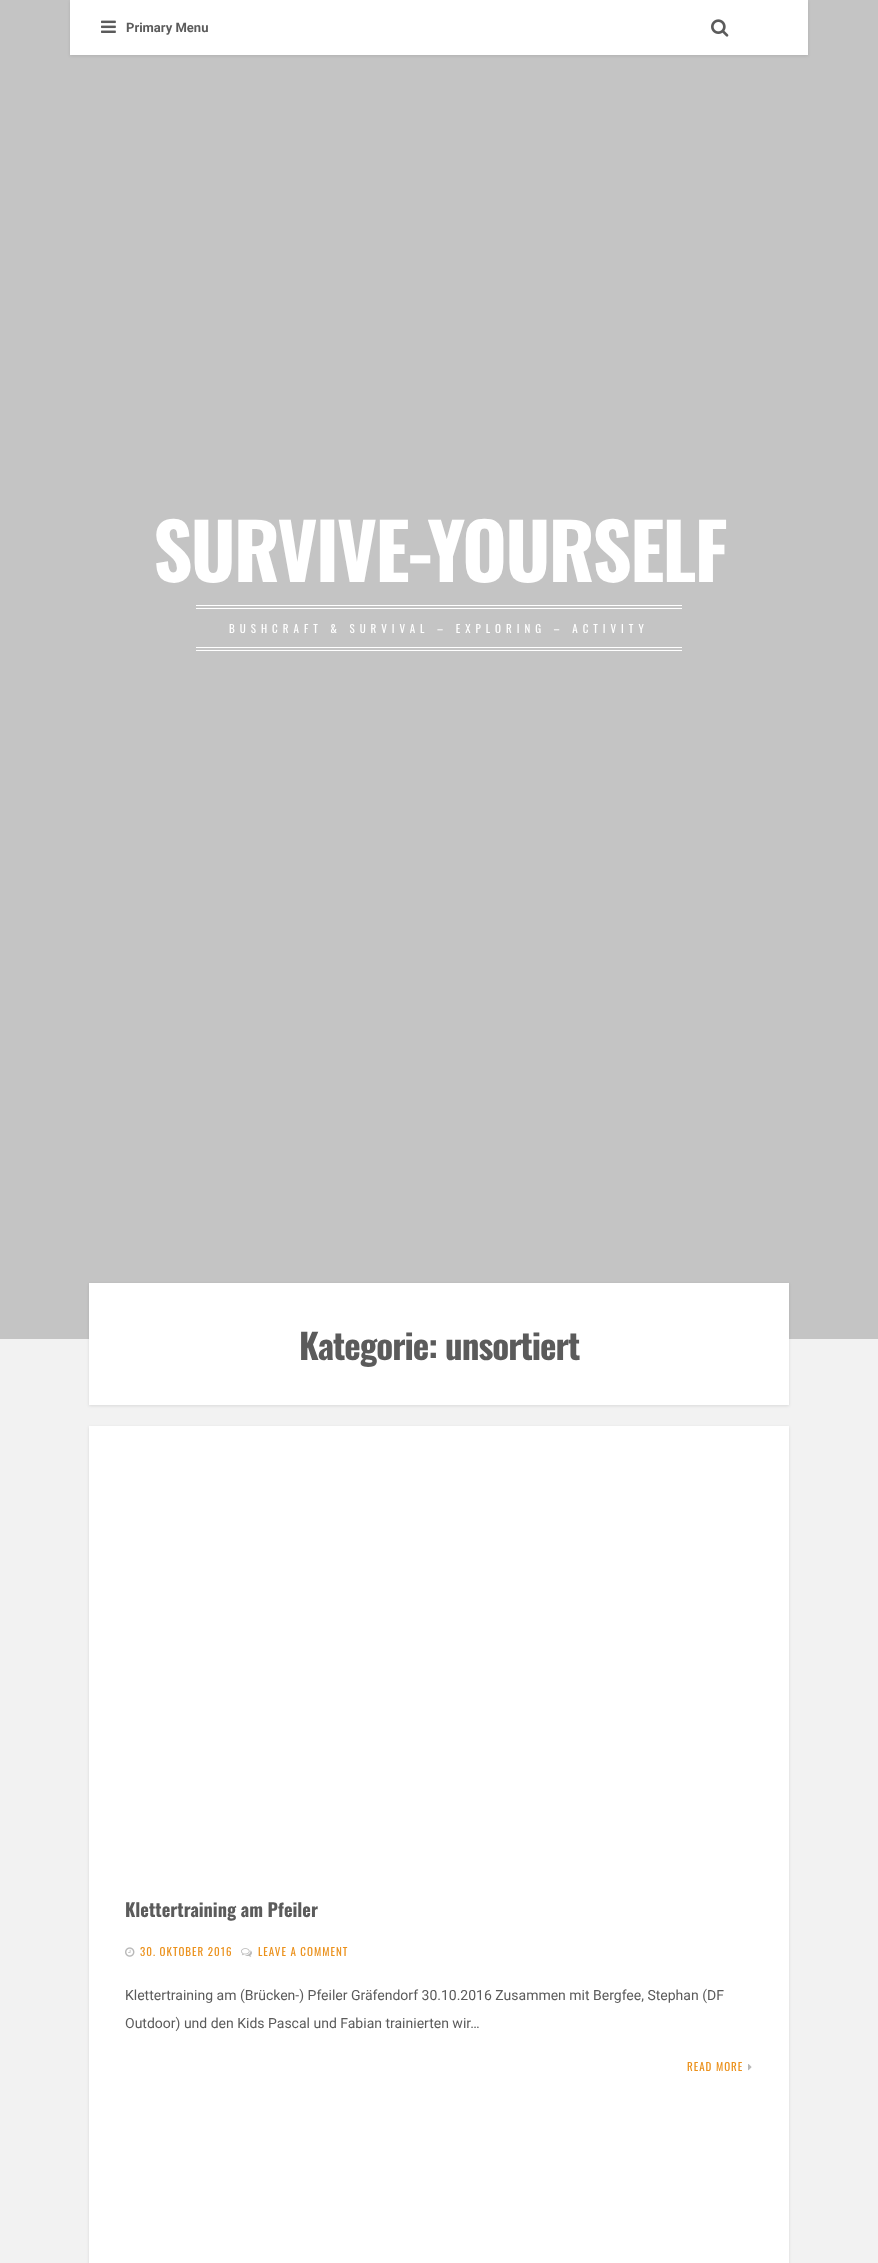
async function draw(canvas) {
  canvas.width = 878;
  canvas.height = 2263;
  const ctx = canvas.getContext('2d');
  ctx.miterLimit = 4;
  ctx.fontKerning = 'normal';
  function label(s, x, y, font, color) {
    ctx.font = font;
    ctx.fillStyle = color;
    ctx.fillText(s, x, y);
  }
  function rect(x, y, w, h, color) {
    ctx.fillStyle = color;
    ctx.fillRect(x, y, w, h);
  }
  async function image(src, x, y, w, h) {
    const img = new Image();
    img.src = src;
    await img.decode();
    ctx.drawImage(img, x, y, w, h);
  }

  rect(0, 0, 878, 2263, '#f2f2f2');
  rect(0, 0, 878, 1339, '#c4c4c4');
  ctx.fillStyle = '#0d0d0d1a';
  ctx.filter = 'blur(1.5px)';
  ctx.beginPath();
  ctx.rect(70, 1, 738, 55);
  ctx.fill();
  ctx.filter = 'none';
  rect(70, 0, 738, 55, '#fff');
  await image('assets/img1.png', 101, 20, 15, 13);
  label('Primary Menu', 126, 32, 'bold 13px Roboto', '#5b5b5b');
  await image('assets/img2.png', 711, 19, 18, 18);
  ctx.letterSpacing = '-2px';
  label('SURVIVE-YOURSELF', 153, 582, 'bold 77px Oswald', '#fff');
  rect(196, 605, 486, 1, '#fff');
  rect(196, 608, 486, 1, '#fff');
  rect(196, 647, 486, 1, '#fff');
  rect(196, 650, 486, 1, '#fff');
  ctx.letterSpacing = '5px';
  label('BUSHCRAFT & SURVIVAL – EXPLORING – ACTIVITY', 229, 633, '11px Oswald', '#fff');
  ctx.fillStyle = '#0d0d0d1a';
  ctx.filter = 'blur(1.5px)';
  ctx.beginPath();
  ctx.rect(89, 1284, 700, 122);
  ctx.fill();
  ctx.filter = 'none';
  rect(89, 1283, 700, 122, '#fff');
  ctx.letterSpacing = '-1px';
  label('Kategorie: unsortiert', 299, 1360, 'bold 35px Oswald', '#5b5b5b');
  ctx.fillStyle = '#0d0d0d1a';
  ctx.filter = 'blur(1.5px)';
  ctx.beginPath();
  ctx.rect(89, 1427, 700, 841);
  ctx.fill();
  ctx.filter = 'none';
  rect(89, 1426, 700, 837, '#fff');
  ctx.letterSpacing = '0px';
  label('Klettertraining am Pfeiler', 125, 1917, 'bold 18.25px Oswald', '#5b5b5b');
  await image('assets/img3.png', 125, 1947, 10, 10);
  ctx.letterSpacing = '1px';
  label('30. OKTOBER 2016', 140, 1956, '11px Oswald', '#eb911c');
  await image('assets/img4.png', 241, 1948, 11, 9);
  label('LEAVE A COMMENT', 258, 1956, '11px Oswald', '#eb911c');
  ctx.letterSpacing = '0px';
  label('Klettertraining am (Brücken-) Pfeiler Gräfendorf 30.10.2016 Zusammen mit Bergfee, Stephan (DF', 125, 2000, '14px Roboto', '#5b5b5b');
  label('Outdoor) und den Kids Pascal und Fabian trainierten wir…', 125, 2028, '14px Roboto', '#5b5b5b');
  ctx.letterSpacing = '1px';
  label('READ MORE', 687, 2071, '11px Oswald', '#eb911c');
  await image('assets/img5.png', 748, 2064, 4, 7);
}

draw(document.querySelector('canvas'));
